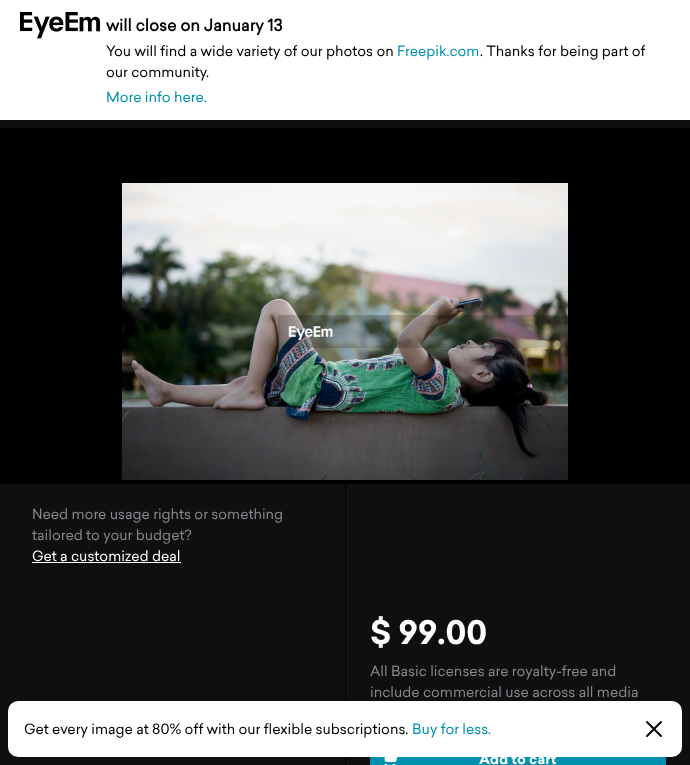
async function draw(canvas) {
  canvas.width = 690;
  canvas.height = 765;
  const ctx = canvas.getContext('2d');
  ctx.miterLimit = 4;
  ctx.fontKerning = 'normal';
  function label(s, x, y, font, color) {
    ctx.font = font;
    ctx.fillStyle = color;
    ctx.fillText(s, x, y);
  }
  function rect(x, y, w, h, color) {
    ctx.fillStyle = color;
    ctx.fillRect(x, y, w, h);
  }
  function roundedRect(x, y, w, h, r, color) {
    ctx.fillStyle = color;
    ctx.beginPath();
    ctx.roundRect(x, y, w, h, r);
    ctx.fill();
  }
  async function image(src, x, y, w, h) {
    const img = new Image();
    img.src = src;
    await img.decode();
    ctx.drawImage(img, x, y, w, h);
  }
  let path;

  rect(0, 0, 690, 765, '#000');
  rect(0, 0, 690, 120, '#fff');
  await image('assets/img1.png', 20, 12, 80, 27);
  label('will close on January 13', 106, 31, 'bold 16px "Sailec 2"', '#000');
  label('You will find a wide variety of our photos on', 106, 56, '14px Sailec', '#000');
  label('Freepik.com', 397, 56, '14px Sailec', '#0091b0');
  label('. Thanks for being part of', 480, 56, '14px Sailec', '#000');
  label('our community.', 106, 77, '14px Sailec', '#000');
  label('More info here.', 106, 102, '14px Sailec', '#0091b0');
  rect(0, 120, 690, 8, '#0f0f11');
  await image('assets/img2.png', 122, 183, 446, 297);
  rect(0, 484, 345, 281, '#0f0f11');
  label('Need more usage rights or something', 32, 519, '14px Sailec', '#87878b');
  label('tailored to your budget?', 32, 540, '14px Sailec', '#87878b');
  label('Get a customized deal', 32, 561, '14px Sailec', '#fff');
  rect(32, 562, 149, 1, '#fff');
  rect(346, 484, 344, 281, '#0f0f11');
  label('$ 99.00', 370, 644, 'bold 32px Sailec', '#fff');
  label('All Basic licenses are royalty-free and', 370, 676, '14px Sailec', '#87878b');
  label('include commercial use across all media', 370, 697, '14px Sailec', '#87878b');
  rect(370, 757, 296, 8, '#0091b0');
  await image('assets/img3.png', 384, 757, 14, 8);
  label('Add to cart', 479, 764, 'bold 14px Sailec', '#fff');
  roundedRect(8, 701, 674, 56, 10, '#fff');
  label('Get every image at 80% off with our flexible subscriptions.', 24, 734, '14px Sailec', '#000');
  label('Buy for less.', 412, 734, '14px Sailec', '#0091b0');
  path = new Path2D('M661 722L647 736M647 722L661 736');
  ctx.strokeStyle = '#000';
  ctx.lineWidth = 2;
  ctx.lineCap = 'round';
  ctx.lineJoin = 'round';
  ctx.stroke(path);
}

draw(document.querySelector('canvas'));
